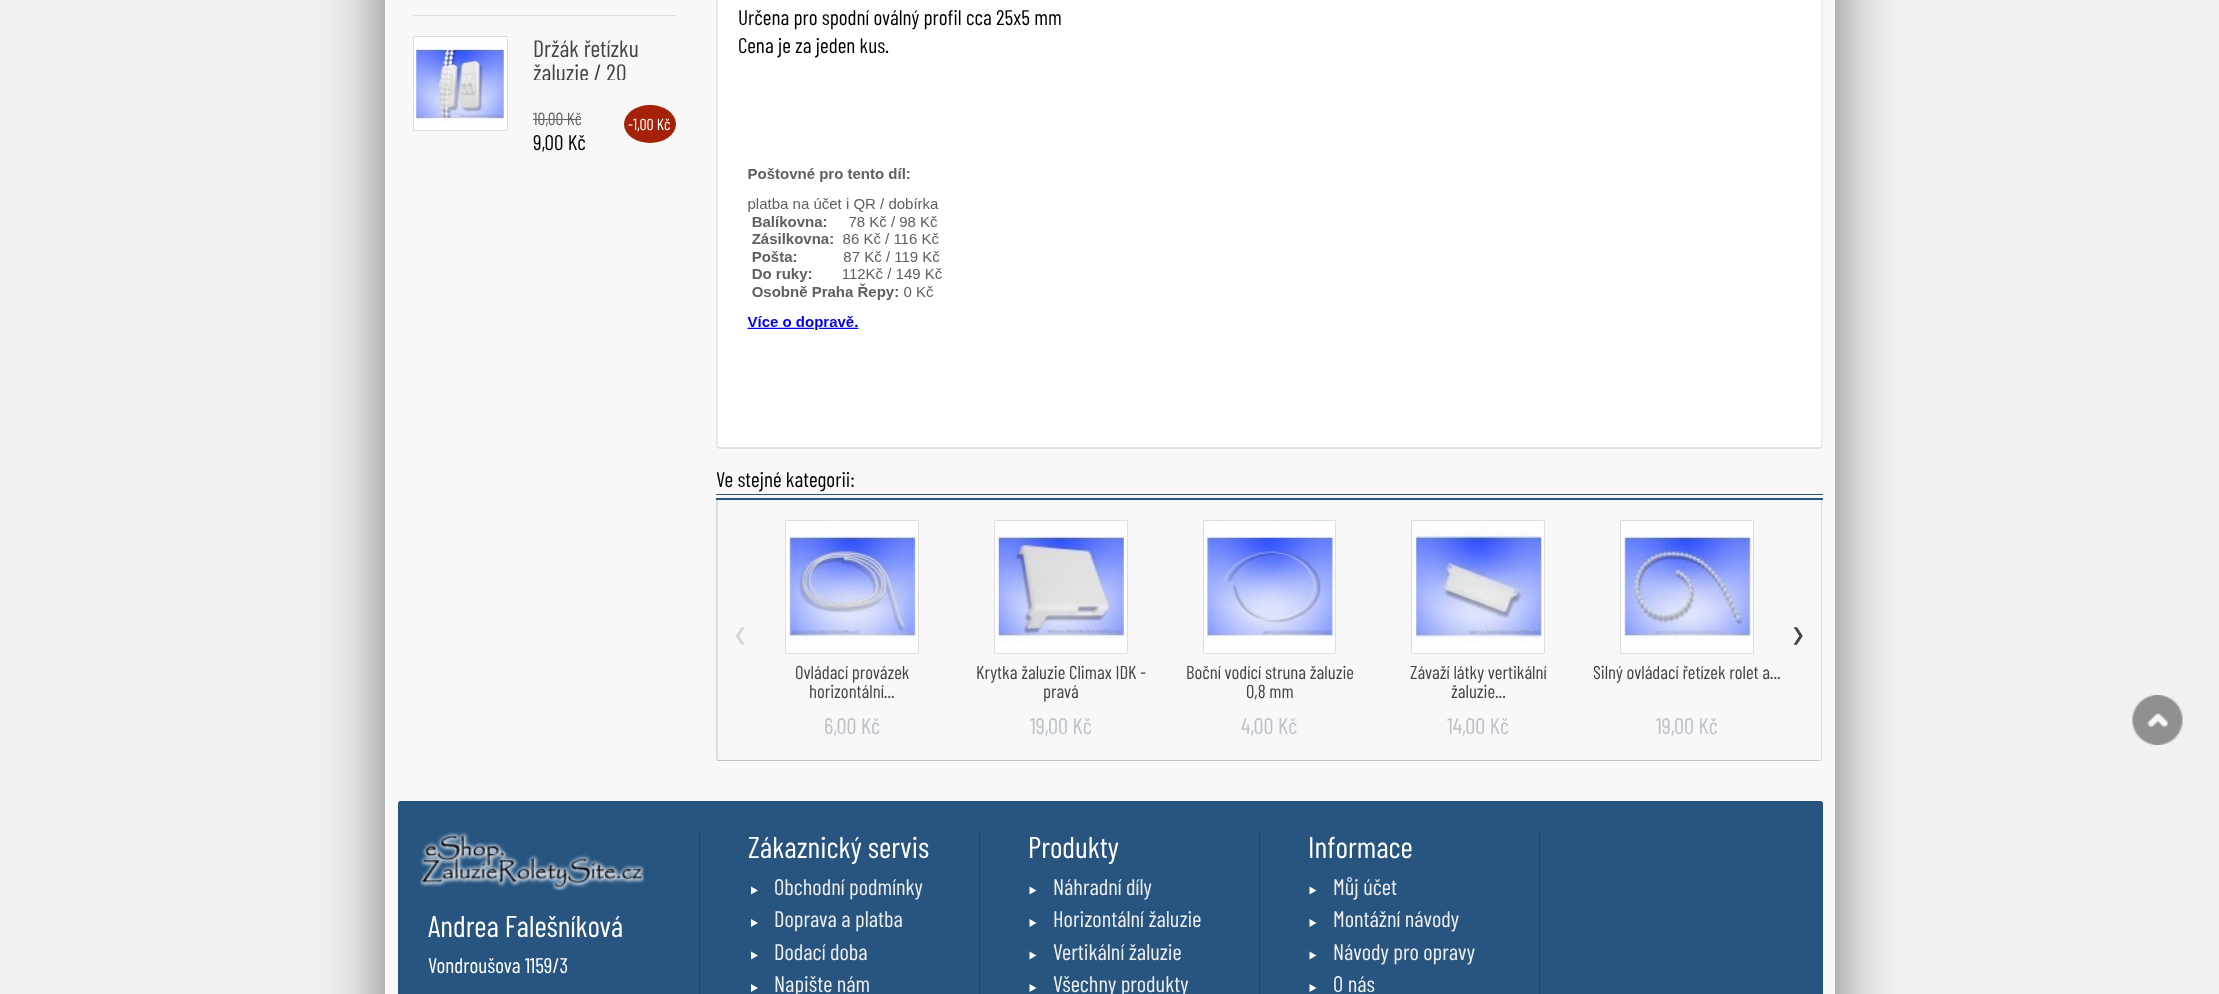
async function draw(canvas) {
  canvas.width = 2219;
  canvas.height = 994;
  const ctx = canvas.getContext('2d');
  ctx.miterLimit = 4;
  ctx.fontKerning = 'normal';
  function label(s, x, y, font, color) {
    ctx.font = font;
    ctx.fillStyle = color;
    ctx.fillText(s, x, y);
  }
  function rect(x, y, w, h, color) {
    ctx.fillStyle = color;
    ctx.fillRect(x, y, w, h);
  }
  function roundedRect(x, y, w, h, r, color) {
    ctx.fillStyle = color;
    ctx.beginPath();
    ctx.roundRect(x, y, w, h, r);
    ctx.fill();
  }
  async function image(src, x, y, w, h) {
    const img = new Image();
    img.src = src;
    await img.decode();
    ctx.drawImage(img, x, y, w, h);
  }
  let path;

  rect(0, 0, 2219, 994, '#f1f1f1');
  ctx.fillStyle = '#737373';
  ctx.filter = 'blur(31px)';
  ctx.beginPath();
  ctx.rect(385, -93, 1450, 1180);
  ctx.fill();
  ctx.filter = 'none';
  rect(385, 0, 1450, 994, '#f8f8f8');
  rect(413, 15, 263, 1, '#ddd');
  ctx.fillStyle = '#fff';
  ctx.beginPath();
  ctx.rect(413.5, 36.5, 94, 94);
  ctx.fill();
  ctx.strokeStyle = '#ddd';
  ctx.stroke();
  await image('assets/img1.png', 416, 40, 88, 84);
  label('Držák řetízku', 533, 57, '23.75px Barlow Condensed', '#444');
  ctx.save();
  ctx.beginPath();
  ctx.rect(533, 36, 143, 44);
  ctx.clip();
  label('žaluzie / 20', 533, 81, '23.75px Barlow Condensed', '#444');
  ctx.restore();
  label('10,00 Kč', 533, 125, '17.5px Barlow Condensed', '#656565');
  rect(533, 119, 48, 1, '#656565');
  ctx.fillStyle = '#a52107';
  ctx.beginPath();
  ctx.ellipse(650, 124, 26, 19, 0, 0, 2 * Math.PI);
  ctx.fill();
  label('-1,00 Kč', 628, 130, '16px Barlow Condensed', '#fff');
  label('9,00 Kč', 533, 150, '21.25px Barlow Condensed', '#000');
  roundedRect(716, -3, 1107, 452, 2.5, '#fff');
  path = new Path2D('M1821.5 447.5L1820 448H719L717.5 447.5');
  ctx.strokeStyle = '#c4c4c4';
  ctx.lineWidth = 1.2;
  ctx.stroke(path);
  path = new Path2D('M717.5 447.5L717 446V-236L717.5-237.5L719-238H1820L1821.5-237.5L1822-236V446L1821.5 447.5');
  ctx.strokeStyle = '#ddd';
  ctx.stroke(path);
  label('Určena pro spodní oválný profil cca 25x5 mm', 738, 25, '21.25px Barlow Condensed', '#000');
  label('Cena je za jeden kus.', 738, 53, '21.25px Barlow Condensed', '#000');
  await image('assets/img2.png', 747, 168, 195, 162);
  label('Ve stejné kategorii:', 716, 487, '21.25px Barlow Condensed', '#000');
  rect(716, 494, 1107, 1, '#275580');
  rect(716, 498, 1107, 2, '#275580');
  ctx.fillStyle = '#ddd';
  path = new Path2D('M1822 500H1821V760L1822 759Z');
  ctx.fill(path);
  ctx.fillStyle = '#c4c4c4';
  path = new Path2D('M1821 760L1820 761H719H717L718 759L719 760H1820Z');
  ctx.fill(path);
  ctx.fillStyle = '#ddd';
  path = new Path2D('M718 500V759L717 761L716 760V500Z');
  ctx.fill(path);
  label('‹', 733, 650, '50px Barlow Condensed', '#d5d5d5');
  label('›', 1790, 650, '50px Barlow Condensed', '#444');
  ctx.fillStyle = '#fff';
  ctx.beginPath();
  ctx.rect(785.5, 520.5, 133, 133);
  ctx.fill();
  ctx.lineWidth = 1;
  ctx.stroke();
  await image('assets/img3.png', 789, 524, 127, 120);
  label('Ovládací provázek', 795, 679, '18.75px Barlow Condensed', '#444');
  label('horizontální...', 809, 698, '18.75px Barlow Condensed', '#444');
  label('6,00 Kč', 824, 734, '22.5px Barlow Condensed', '#bbc3c9');
  ctx.fillStyle = '#fff';
  ctx.beginPath();
  ctx.rect(994.5, 520.5, 133, 133);
  ctx.fill();
  ctx.stroke();
  await image('assets/img4.png', 998, 524, 126, 120);
  label('Krytka žaluzie Climax IDK -', 976, 679, '18.75px Barlow Condensed', '#444');
  label('pravá', 1043, 698, '18.75px Barlow Condensed', '#444');
  label('19,00 Kč', 1030, 734, '22.5px Barlow Condensed', '#bbc3c9');
  ctx.fillStyle = '#fff';
  ctx.beginPath();
  ctx.rect(1203.5, 520.5, 132, 133);
  ctx.fill();
  ctx.stroke();
  await image('assets/img5.png', 1207, 527, 127, 116);
  label('Boční vodící struna žaluzie', 1186, 679, '18.75px Barlow Condensed', '#444');
  label('0,8 mm', 1246, 698, '18.75px Barlow Condensed', '#444');
  label('4,00 Kč', 1241, 734, '22.5px Barlow Condensed', '#bbc3c9');
  ctx.fillStyle = '#fff';
  ctx.beginPath();
  ctx.rect(1411.5, 520.5, 133, 133);
  ctx.fill();
  ctx.stroke();
  await image('assets/img6.png', 1416, 524, 126, 120);
  label('Závaží látky vertikální', 1410, 679, '18.75px Barlow Condensed', '#444');
  label('žaluzie...', 1451, 698, '18.75px Barlow Condensed', '#444');
  label('14,00 Kč', 1447, 734, '22.5px Barlow Condensed', '#bbc3c9');
  ctx.fillStyle = '#fff';
  ctx.beginPath();
  ctx.rect(1620.5, 520.5, 133, 133);
  ctx.fill();
  ctx.stroke();
  await image('assets/img7.png', 1624, 524, 127, 120);
  label('Silný ovládací řetízek rolet a...', 1593, 679, '18.75px Barlow Condensed', '#444');
  label('19,00 Kč', 1656, 734, '22.5px Barlow Condensed', '#bbc3c9');
  await image('assets/img8.png', 2132, 695, 51, 50);
  roundedRect(398, 801, 1425, 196, 2.5, '#275580');
  rect(699, 831, 1, 163, '#1f4466');
  await image('assets/img9.png', 420, 832, 224, 59);
  label('Andrea Falešníková', 428, 937, '30px Barlow Condensed', '#fff');
  label('Vondroušova 1159/3', 428, 973, '21.25px Barlow Condensed', '#fff');
  rect(979, 831, 1, 163, '#1f4466');
  label('Zákaznický servis', 748, 858, '30px Barlow Condensed', '#fff');
  path = new Path2D('M758 890.5L751 894.5V886.5Z');
  ctx.fill(path);
  label('Obchodní podmínky', 774, 895, '22.5px Barlow Condensed', '#eee');
  ctx.fillStyle = '#fff';
  path = new Path2D('M758 923L751 927V919Z');
  ctx.fill(path);
  label('Doprava a platba', 774, 927, '22.5px Barlow Condensed', '#eee');
  ctx.fillStyle = '#fff';
  path = new Path2D('M758 955.5L751 959.5V951.5Z');
  ctx.fill(path);
  label('Dodací doba', 774, 960, '22.5px Barlow Condensed', '#eee');
  ctx.fillStyle = '#fff';
  path = new Path2D('M758 988L751 992V984Z');
  ctx.fill(path);
  label('Napište nám', 774, 992, '22.5px Barlow Condensed', '#eee');
  rect(1259, 831, 1, 163, '#1f4466');
  label('Produkty', 1028, 858, '30px Barlow Condensed', '#fff');
  path = new Path2D('M1036.5 890.5L1029.5 894.5V886.5Z');
  ctx.fill(path);
  label('Náhradní díly', 1053, 895, '22.5px Barlow Condensed', '#eee');
  ctx.fillStyle = '#fff';
  path = new Path2D('M1036.5 923L1029.5 927V919Z');
  ctx.fill(path);
  label('Horizontální žaluzie', 1053, 927, '22.5px Barlow Condensed', '#eee');
  ctx.fillStyle = '#fff';
  path = new Path2D('M1036.5 955.5L1029.5 959.5V951.5Z');
  ctx.fill(path);
  label('Vertikální žaluzie', 1053, 960, '22.5px Barlow Condensed', '#eee');
  ctx.fillStyle = '#fff';
  path = new Path2D('M1036.5 988L1029.5 992V984Z');
  ctx.fill(path);
  label('Všechny produkty', 1053, 992, '22.5px Barlow Condensed', '#eee');
  rect(1539, 831, 1, 163, '#1f4466');
  label('Informace', 1308, 858, '30px Barlow Condensed', '#fff');
  path = new Path2D('M1316.5 890.5L1309.5 894.5V886.5Z');
  ctx.fill(path);
  label('Můj účet', 1333, 895, '22.5px Barlow Condensed', '#eee');
  ctx.fillStyle = '#fff';
  path = new Path2D('M1316.5 923L1309.5 927V919Z');
  ctx.fill(path);
  label('Montážní návody', 1333, 927, '22.5px Barlow Condensed', '#eee');
  ctx.fillStyle = '#fff';
  path = new Path2D('M1316.5 955.5L1309.5 959.5V951.5Z');
  ctx.fill(path);
  label('Návody pro opravy', 1333, 960, '22.5px Barlow Condensed', '#eee');
  ctx.fillStyle = '#fff';
  path = new Path2D('M1316.5 988L1309.5 992V984Z');
  ctx.fill(path);
  label('O nás', 1333, 992, '22.5px Barlow Condensed', '#eee');
}

draw(document.querySelector('canvas'));
